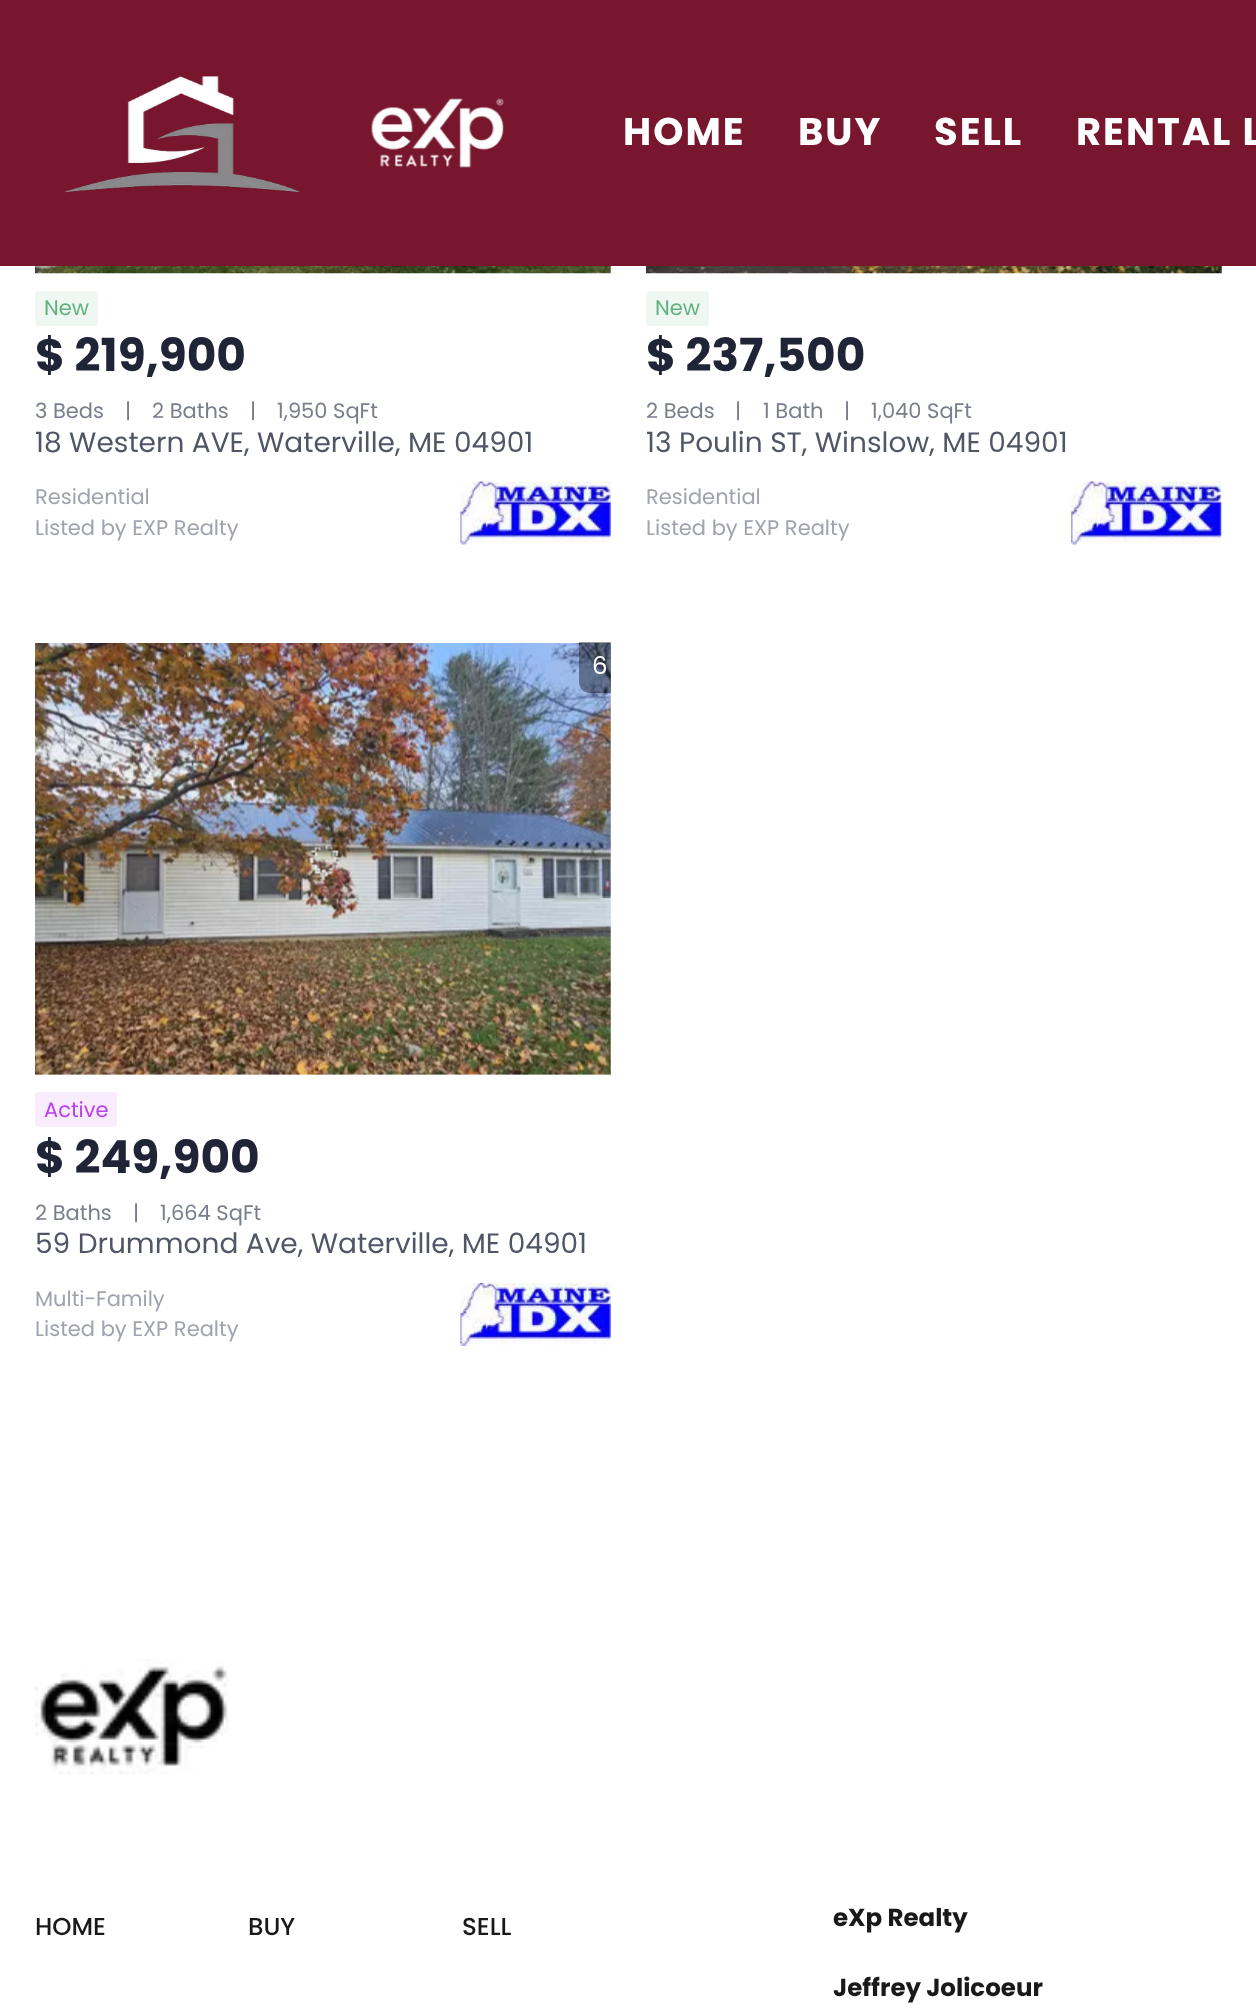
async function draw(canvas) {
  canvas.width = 1256;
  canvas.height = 2013;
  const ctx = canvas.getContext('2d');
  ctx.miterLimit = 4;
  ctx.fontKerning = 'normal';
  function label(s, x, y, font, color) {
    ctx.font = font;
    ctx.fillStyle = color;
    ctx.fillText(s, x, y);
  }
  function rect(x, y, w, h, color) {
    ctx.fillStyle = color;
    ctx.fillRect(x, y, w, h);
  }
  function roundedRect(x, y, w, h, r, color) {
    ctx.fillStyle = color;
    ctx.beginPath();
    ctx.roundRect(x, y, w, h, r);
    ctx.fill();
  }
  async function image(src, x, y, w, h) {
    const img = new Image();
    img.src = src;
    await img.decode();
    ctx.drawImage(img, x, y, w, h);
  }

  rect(0, 0, 1256, 2013, '#fff');
  rect(0, 0, 1256, 266, '#77162d');
  await image('assets/img1.png', 63, 76, 237, 117);
  await image('assets/img2.png', 371, 98, 133, 70);
  ctx.letterSpacing = '2px';
  label('HOME', 623, 145, 'bold 38.5px Poppins', '#fff');
  label('BUY', 798, 145, 'bold 38.5px Poppins', '#fff');
  label('SELL', 934, 145, 'bold 38.5px Poppins', '#fff');
  label('RENTAL L', 1076, 145, 'bold 38.5px Poppins', '#fff');
  await image('assets/img3.png', 35, 266, 576, 8);
  roundedRect(35, 291, 63, 35, 4, '#eff7f2');
  ctx.letterSpacing = '0px';
  label('New', 44, 315, '21px Poppins', '#62b280');
  label('$ 219,900', 35, 371, 'bold 45.5px Poppins', '#202437');
  label('3 Beds', 35, 418, '21px Poppins', '#797e8b');
  label('|', 125, 418, '21px Poppins', '#797e8b');
  label('2 Baths', 152, 418, '21px Poppins', '#797e8b');
  label('|', 250, 418, '21px Poppins', '#797e8b');
  label('1,950 SqFt', 277, 418, '21px Poppins', '#797e8b');
  label('18 Western AVE, Waterville, ME 04901', 35, 452, '28px Poppins', '#515666');
  label('Residential', 35, 504, '21px Poppins', '#a0a3af');
  label('Listed by EXP Realty', 35, 535, '21px Poppins', '#a0a3af');
  await image('assets/img4.png', 460, 481, 151, 64);
  await image('assets/img5.png', 646, 266, 576, 8);
  roundedRect(646, 291, 63, 35, 4, '#eff7f2');
  label('New', 655, 315, '21px Poppins', '#62b280');
  label('$ 237,500', 646, 371, 'bold 45.5px Poppins', '#202437');
  label('2 Beds', 646, 418, '21px Poppins', '#797e8b');
  label('|', 735, 418, '21px Poppins', '#797e8b');
  label('1 Bath', 763, 418, '21px Poppins', '#797e8b');
  label('|', 844, 418, '21px Poppins', '#797e8b');
  label('1,040 SqFt', 871, 418, '21px Poppins', '#797e8b');
  label('13 Poulin ST, Winslow, ME 04901', 646, 452, '28px Poppins', '#515666');
  label('Residential', 646, 504, '21px Poppins', '#a0a3af');
  label('Listed by EXP Realty', 646, 535, '21px Poppins', '#a0a3af');
  await image('assets/img6.png', 1071, 481, 151, 64);
  await image('assets/img7.png', 35, 643, 576, 432);
  await image('assets/img8.png', 308, 845, 33, 32);
  ctx.fillStyle = '#00000066';
  ctx.beginPath();
  ctx.roundRect(579, 642, 32, 51, [0, 0, 0, 11]);
  ctx.fill();
  label('6', 592, 674, '24.5px Poppins', '#fff');
  roundedRect(35, 1092, 82, 35, 4, '#f8ecfd');
  label('Active', 44, 1117, '21px Poppins', '#bb40ef');
  label('$ 249,900', 35, 1173, 'bold 45.5px Poppins', '#202437');
  label('2 Baths', 35, 1220, '21px Poppins', '#797e8b');
  label('|', 133, 1220, '21px Poppins', '#797e8b');
  label('1,664 SqFt', 160, 1220, '21px Poppins', '#797e8b');
  label('59 Drummond Ave, Waterville, ME 04901', 35, 1253, '28px Poppins', '#515666');
  label('Multi-Family', 35, 1306, '21px Poppins', '#a0a3af');
  label('Listed by EXP Realty', 35, 1336, '21px Poppins', '#a0a3af');
  await image('assets/img9.png', 460, 1283, 151, 63);
  await image('assets/img10.png', 35, 1659, 194, 116);
  label('HOME', 35, 1935, '500 24.5px Poppins', '#191919');
  label('BUY', 248, 1935, '500 24.5px Poppins', '#191919');
  label('SELL', 462, 1935, '500 24.5px Poppins', '#191919');
  label('eXp Realty', 833, 1926, 'bold 24.5px Poppins', '#191919');
  label('Jeffrey Jolicoeur', 833, 1996, 'bold 24.5px Poppins', '#191919');
}

draw(document.querySelector('canvas'));
